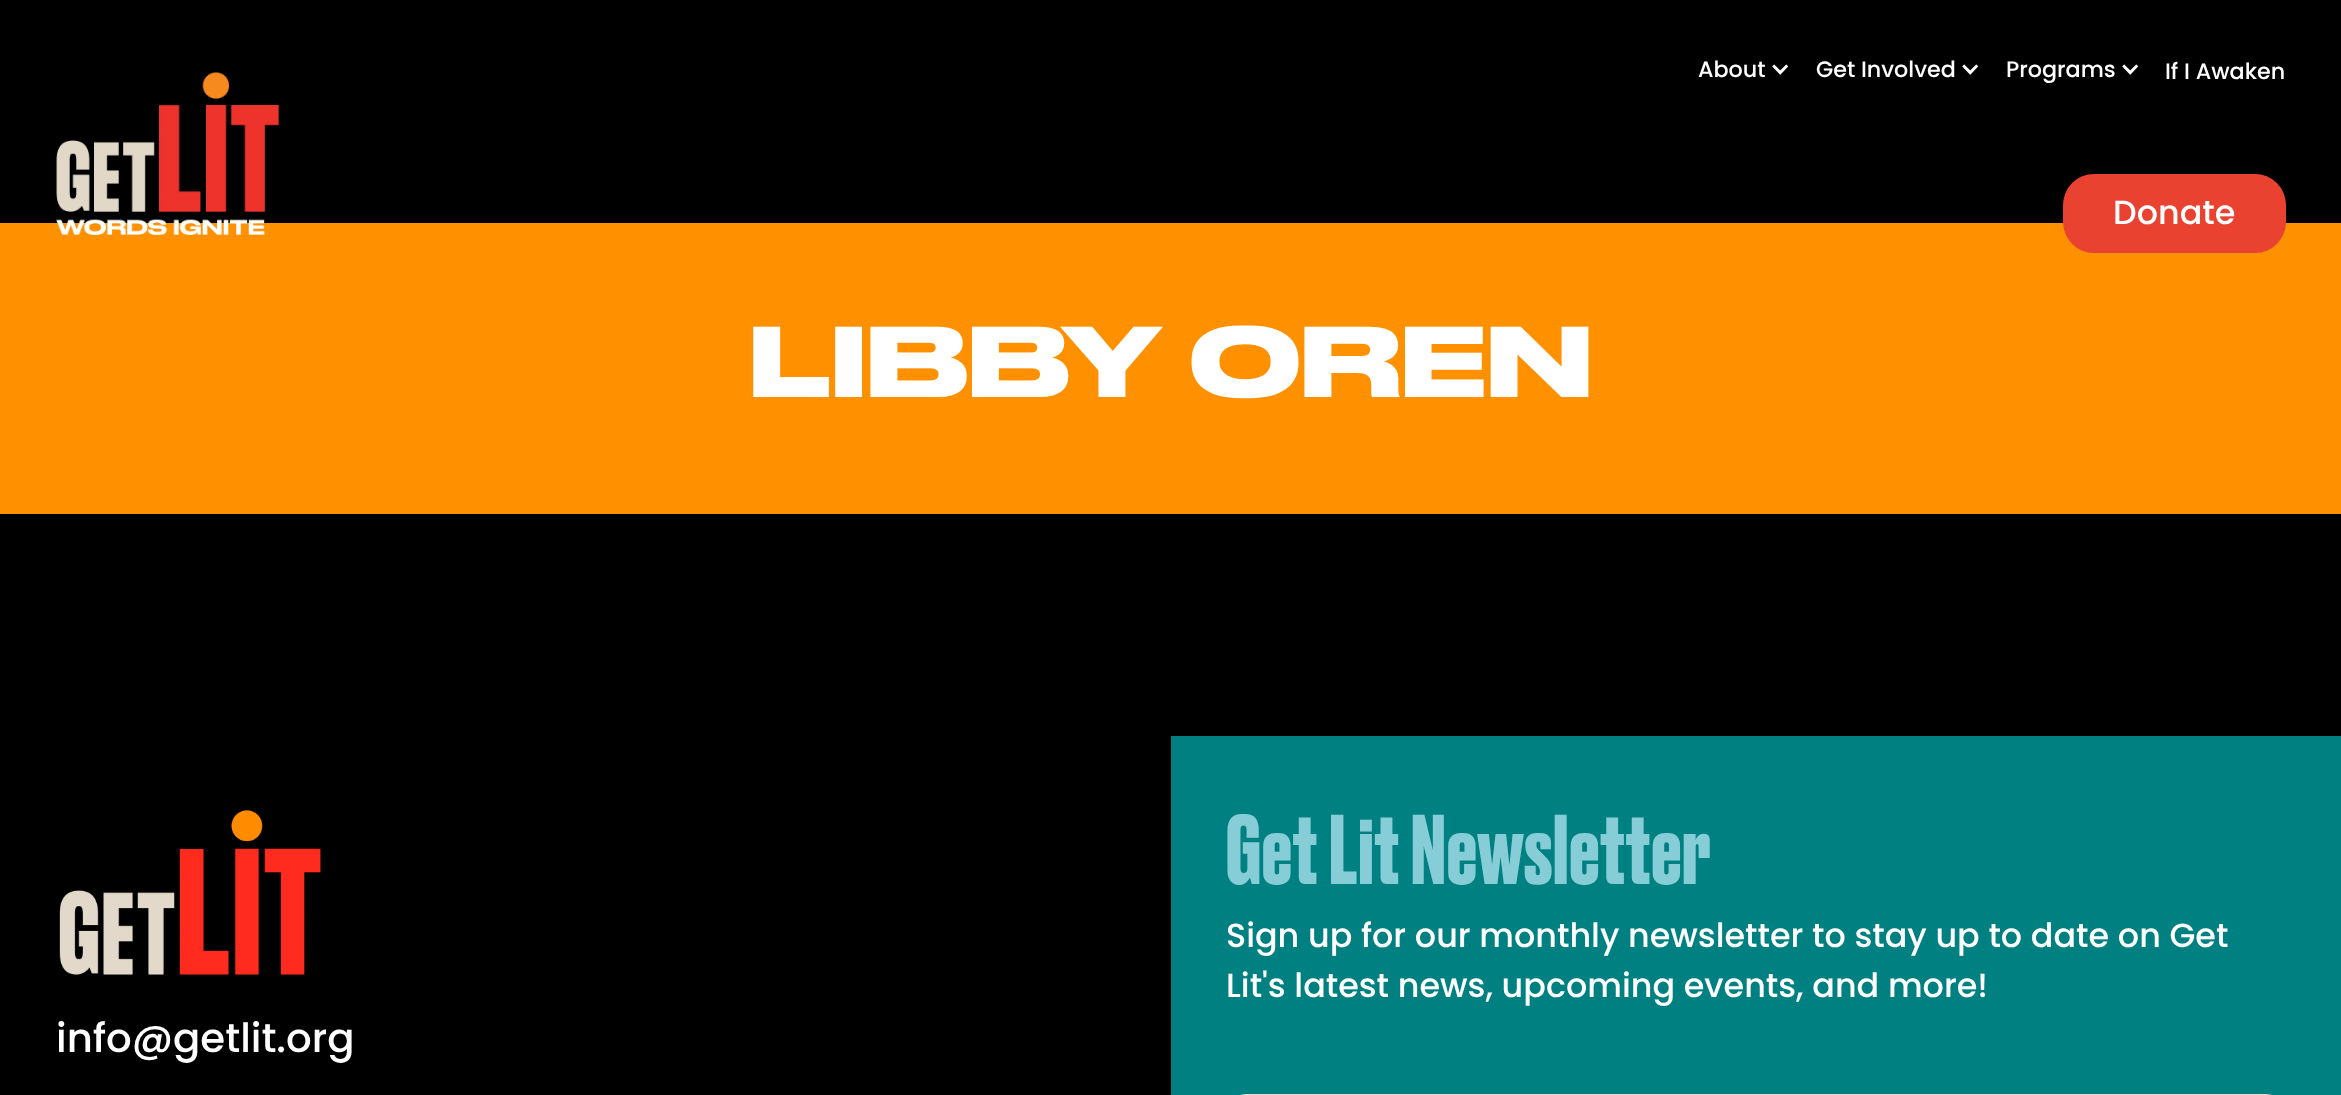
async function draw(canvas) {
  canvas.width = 2341;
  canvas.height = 1095;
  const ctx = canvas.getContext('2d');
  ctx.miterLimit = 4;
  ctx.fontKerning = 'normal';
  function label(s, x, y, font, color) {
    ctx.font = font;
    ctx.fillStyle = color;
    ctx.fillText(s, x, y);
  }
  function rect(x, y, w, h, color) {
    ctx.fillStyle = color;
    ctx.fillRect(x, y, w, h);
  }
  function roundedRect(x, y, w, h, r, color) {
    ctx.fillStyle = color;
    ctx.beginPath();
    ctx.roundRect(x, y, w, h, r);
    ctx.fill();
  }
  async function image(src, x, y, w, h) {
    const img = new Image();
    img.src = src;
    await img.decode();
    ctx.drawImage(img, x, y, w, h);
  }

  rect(0, 0, 2341, 1095, '#000');
  rect(0, 223, 2341, 291, '#ff9100');
  await image('assets/img1.png', 56, 72, 223, 163);
  label('About', 1698, 77, '500 22.25px Poppins', '#fff');
  await image('assets/img2.png', 1772, 64, 17, 11);
  label('Get Involved', 1816, 77, '500 22.25px Poppins', '#fff');
  await image('assets/img2.png', 1962, 64, 17, 11);
  label('Programs', 2006, 77, '500 22.25px Poppins', '#fff');
  await image('assets/img2.png', 2122, 64, 17, 11);
  label('If I Awaken', 2165, 79, '500 22.25px Poppins', '#fff');
  roundedRect(2063, 174, 223, 79, 31, '#e94231');
  label('Donate', 2113, 224, '500 33.4px Poppins', '#fff');
  label('LIBBY OREN', 749, 397, 'bold 94.5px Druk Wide', '#fff');
  rect(1171, 736, 1170, 359, '#008080');
  ctx.letterSpacing = '1.25px';
  label('Get Lit Newsletter', 1226, 884, 'bold 93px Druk', '#86cdd8');
  ctx.letterSpacing = '0px';
  label('Sign up for our monthly newsletter to stay up to date on Get', 1226, 947, '500 33.4px Poppins', '#fff');
  label('Lit\'s latest news, upcoming events, and more!', 1226, 997, '500 33.4px Poppins', '#fff');
  roundedRect(1226, 1094, 1060, 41, 40, '#e2dacb');
  await image('assets/img3.png', 59, 810, 262, 165);
  label('info@getlit.org', 56, 1052, '500 40.25px Poppins', '#fff');
}

draw(document.querySelector('canvas'));
